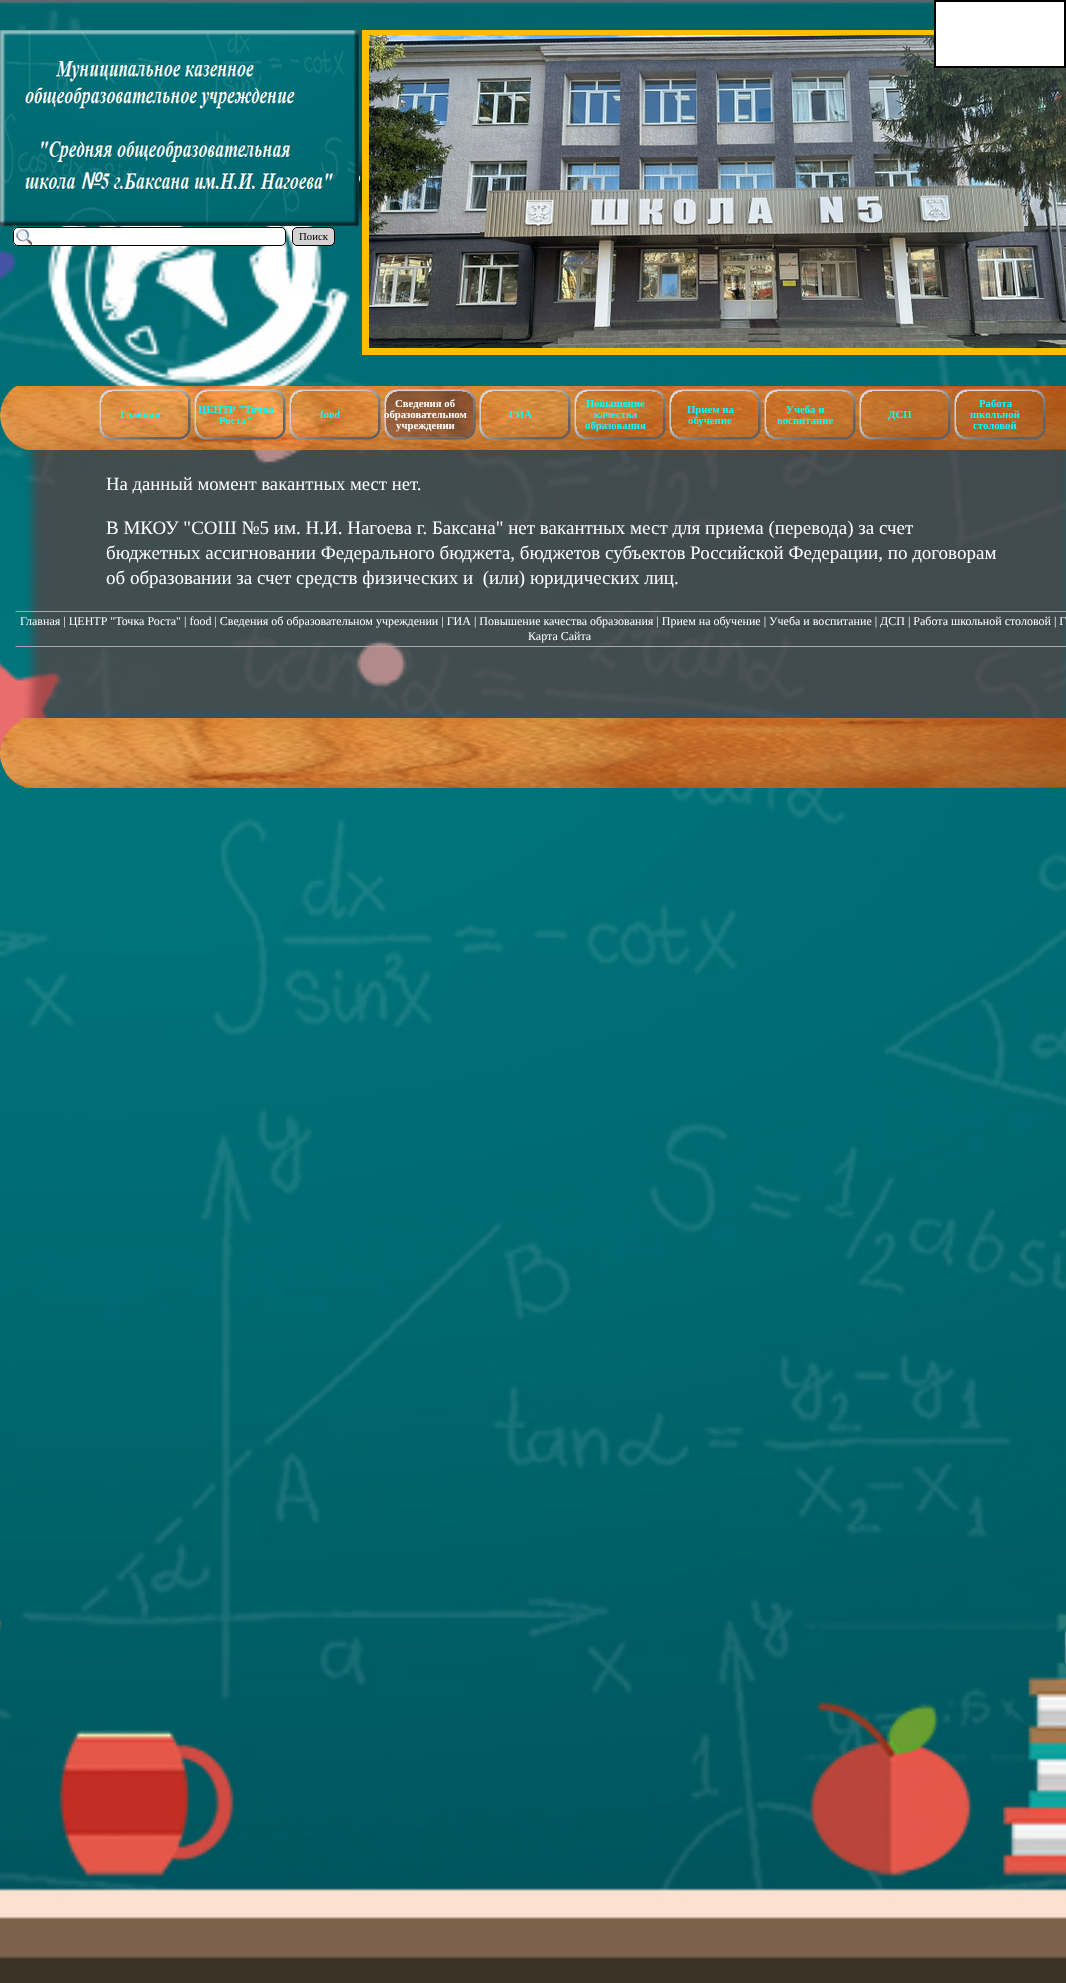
async function draw(canvas) {
  canvas.width = 1066;
  canvas.height = 1983;
  const ctx = canvas.getContext('2d');
  ctx.miterLimit = 4;
  ctx.fontKerning = 'normal';
  function label(s, x, y, font, color) {
    ctx.font = font;
    ctx.fillStyle = color;
    ctx.fillText(s, x, y);
  }
  function rect(x, y, w, h, color) {
    ctx.fillStyle = color;
    ctx.fillRect(x, y, w, h);
  }
  function roundedRect(x, y, w, h, r, color) {
    ctx.fillStyle = color;
    ctx.beginPath();
    ctx.roundRect(x, y, w, h, r);
    ctx.fill();
  }
  async function image(src, x, y, w, h) {
    const img = new Image();
    img.src = src;
    await img.decode();
    ctx.drawImage(img, x, y, w, h);
  }
  let path;

  rect(0, 0, 1066, 1983, '#fff');
  await image('assets/img1.png', 0, 0, 1066, 1983);
  await image('assets/img2.png', 0, 30, 1066, 325);
  ctx.beginPath();
  ctx.rect(935, 1, 130, 66);
  ctx.fill();
  ctx.strokeStyle = '#000';
  ctx.lineWidth = 2;
  ctx.stroke();
  roundedRect(13, 227, 273, 19, 5, '#fff');
  await image('assets/img3.png', 16, 229, 16, 16);
  ctx.beginPath();
  ctx.roundRect(13.5, 227.5, 272, 18, 4.5);
  ctx.lineWidth = 1;
  ctx.stroke();
  ctx.fillStyle = '#d3d3d3';
  ctx.beginPath();
  ctx.roundRect(292.5, 227.5, 42, 18, 4.5);
  ctx.fill();
  ctx.stroke();
  label('Поиск', 299, 240, '10.75px Liberation Serif', '#000');
  await image('assets/img4.png', 0, 386, 1066, 64);
  await image('assets/img5.png', 99, 389, 92, 51);
  label('Главная', 120, 418, 'bold 10.75px Liberation Serif', '#0ff');
  await image('assets/img6.png', 194, 389, 92, 51);
  label('ЦЕНТР "Точка', 198, 413, 'bold 10.75px Liberation Serif', '#0ff');
  label('Роста"', 219, 424, 'bold 10.75px Liberation Serif', '#0ff');
  await image('assets/img7.png', 289, 389, 92, 51);
  label('food', 320, 418, 'bold 10.75px Liberation Serif', '#0ff');
  await image('assets/img8.png', 384, 389, 92, 51);
  label('Сведения об', 395, 407, 'bold 10.75px Liberation Serif', '#fff');
  label('образовательном', 384, 418, 'bold 10.75px Liberation Serif', '#fff');
  label('учреждении', 396, 429, 'bold 10.75px Liberation Serif', '#fff');
  await image('assets/img9.png', 479, 389, 92, 51);
  label('ГИА', 509, 418, 'bold 10.75px Liberation Serif', '#0ff');
  await image('assets/img10.png', 574, 389, 92, 51);
  label('Повышение', 586, 407, 'bold 10.75px Liberation Serif', '#0ff');
  label('качества', 594, 418, 'bold 10.75px Liberation Serif', '#0ff');
  label('образования', 585, 429, 'bold 10.75px Liberation Serif', '#0ff');
  await image('assets/img11.png', 669, 389, 92, 51);
  label('Прием на', 687, 413, 'bold 10.75px Liberation Serif', '#0ff');
  label('обучение', 688, 424, 'bold 10.75px Liberation Serif', '#0ff');
  await image('assets/img12.png', 764, 389, 92, 51);
  label('Учеба и', 786, 413, 'bold 10.75px Liberation Serif', '#0ff');
  label('воспитание', 777, 424, 'bold 10.75px Liberation Serif', '#0ff');
  await image('assets/img13.png', 859, 389, 92, 51);
  label('ДСП', 888, 418, 'bold 10.75px Liberation Serif', '#0ff');
  await image('assets/img14.png', 954, 389, 92, 51);
  label('Работа', 979, 407, 'bold 10.75px Liberation Serif', '#0ff');
  label('школьной', 970, 418, 'bold 10.75px Liberation Serif', '#0ff');
  label('столовой', 973, 429, 'bold 10.75px Liberation Serif', '#0ff');
  await image('assets/img15.png', 24, 450, 1042, 268);
  label('На данный момент вакантных мест нет.', 106, 490, '18.7px Liberation Serif', '#fff');
  label('В МКОУ "СОШ №5 им. Н.И. Нагоева г. Баксана" нет вакантных мест для приема (перевода) за счет', 106, 534, '19px Liberation Serif', '#fff');
  label('бюджетных ассигновании Федерального бюджета, бюджетов субъектов Российской Федерации, по договорам', 106, 559, '19px Liberation Serif', '#fff');
  label('об образовании за счет средств физических и  (или) юридических лиц.', 106, 584, '19px Liberation Serif', '#fff');
  ctx.fillStyle = '#a9a9a9';
  path = new Path2D('M15 611H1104L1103 612H16Z');
  ctx.fill(path);
  path = new Path2D('M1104 647H15L16 646H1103Z');
  ctx.fill(path);
  label('Главная | ЦЕНТР "Точка Роста" | food | Сведения об образовательном учреждении | ГИА | Повышение качества образования | Прием на обучение | Учеба и воспитание | ДСП | Работа школьной столовой | Г', 20, 625, '12px Liberation Serif', '#fff');
  label('Карта Сайта', 528, 640, '12px Liberation Serif', '#fff');
  await image('assets/img16.png', 0, 718, 1066, 70);
}

draw(document.querySelector('canvas'));
